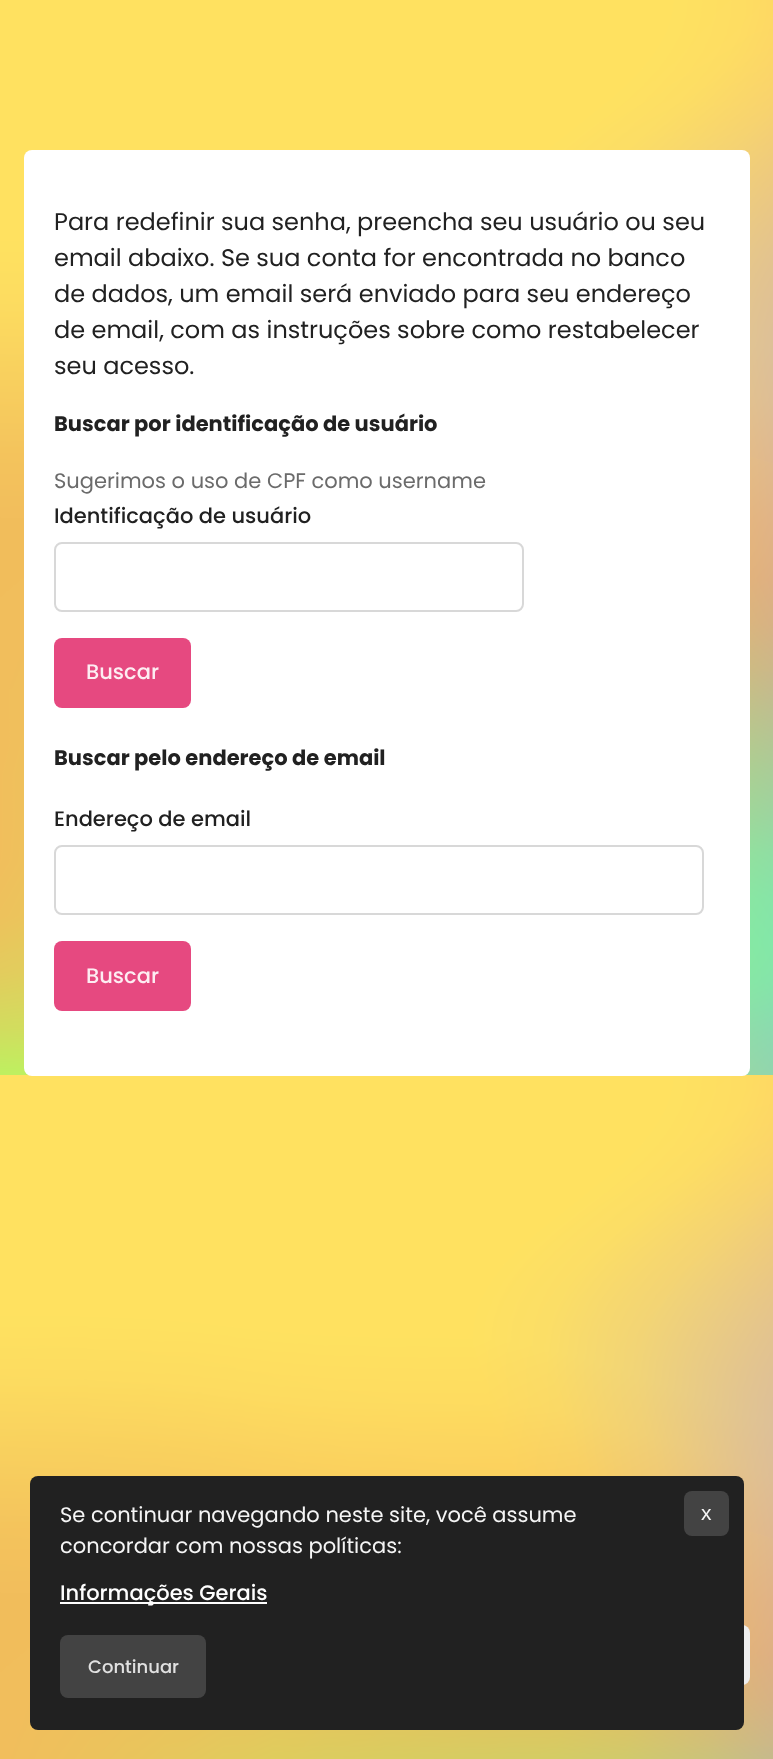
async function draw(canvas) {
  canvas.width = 773;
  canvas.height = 1759;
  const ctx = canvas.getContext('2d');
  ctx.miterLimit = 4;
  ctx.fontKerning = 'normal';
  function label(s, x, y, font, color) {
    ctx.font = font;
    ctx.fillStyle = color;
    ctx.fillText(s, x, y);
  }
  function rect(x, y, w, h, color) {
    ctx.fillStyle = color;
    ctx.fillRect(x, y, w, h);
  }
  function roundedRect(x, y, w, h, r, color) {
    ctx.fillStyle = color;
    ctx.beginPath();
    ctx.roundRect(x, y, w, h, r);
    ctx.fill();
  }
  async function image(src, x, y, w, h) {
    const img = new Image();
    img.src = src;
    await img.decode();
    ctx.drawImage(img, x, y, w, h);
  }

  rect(0, 0, 773, 1759, '#fff');
  await image('assets/img1.png', 0, 0, 773, 1759);
  roundedRect(24, 150, 726, 926, 8, '#fff');
  label('Para redefinir sua senha, preencha seu usuário ou seu', 54, 230, '24px Poppins', '#212121');
  label('email abaixo. Se sua conta for encontrada no banco', 54, 266, '24px Poppins', '#212121');
  label('de dados, um email será enviado para seu endereço', 54, 302, '24px Poppins', '#212121');
  label('de email, com as instruções sobre como restabelecer', 54, 338, '24px Poppins', '#212121');
  label('seu acesso.', 54, 374, '24px Poppins', '#212121');
  label('Buscar por identificação de usuário', 54, 431, 'bold 21px Poppins', '#212121');
  label('Sugerimos o uso de CPF como username', 54, 488, '21px Poppins', '#6b6b6b');
  label('Identificação de usuário', 54, 523, '500 21px Poppins', '#212121');
  ctx.beginPath();
  ctx.roundRect(55, 543, 468, 68, 7);
  ctx.strokeStyle = '#d8d8d8';
  ctx.lineWidth = 2;
  ctx.stroke();
  roundedRect(54, 638, 137, 70, 8, '#e64980');
  label('Buscar', 86, 679, '500 21px Poppins', '#fdedf2');
  label('Buscar pelo endereço de email', 54, 765, 'bold 21px Poppins', '#212121');
  label('Endereço de email', 54, 826, '500 21px Poppins', '#212121');
  ctx.beginPath();
  ctx.roundRect(55, 846, 648, 68, 7);
  ctx.stroke();
  roundedRect(54, 941, 137, 70, 8, '#e64980');
  label('Buscar', 86, 983, '500 21px Poppins', '#fdedf2');
  roundedRect(690, 1625, 60, 60, 8, '#eee');
  roundedRect(30, 1476, 714, 254, 8, '#212121');
  label('Se continuar navegando neste site, você assume', 60, 1522, '21px Poppins', '#f5f5f5');
  label('concordar com nossas políticas:', 60, 1553, '21px Poppins', '#f5f5f5');
  rect(60, 1602, 207, 2, '#fff');
  label('Informações Gerais', 60, 1600, '500 21px Poppins', '#fff');
  roundedRect(684, 1491, 45, 45, 8, '#434343');
  label('x', 701, 1520, '21px Liberation Sans', '#f5f5f5');
  roundedRect(60, 1635, 146, 63, 8, '#434343');
  label('Continuar', 88, 1673, '500 18px Poppins', '#e1e1e1');
}

draw(document.querySelector('canvas'));
